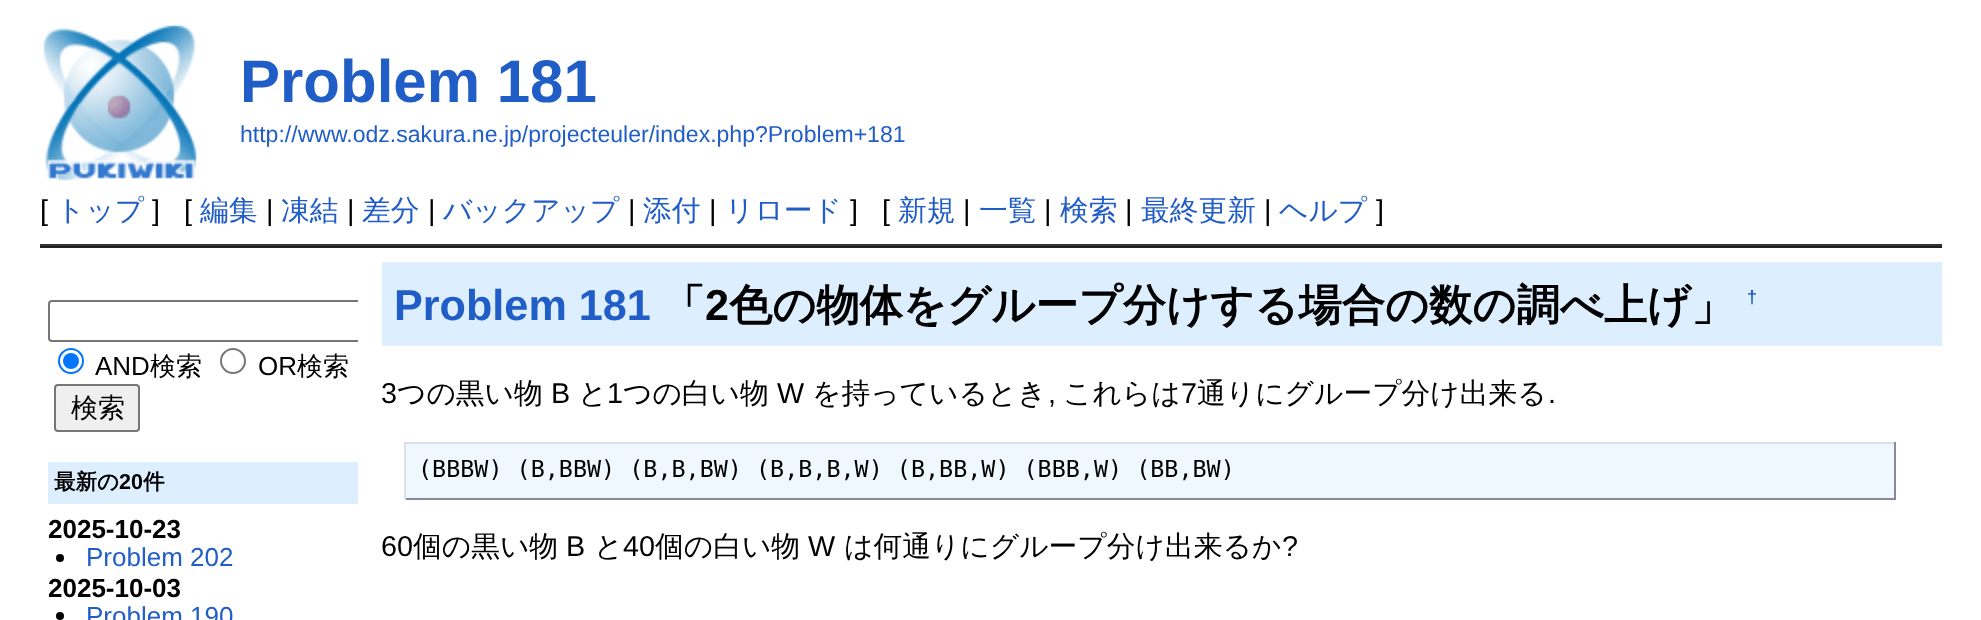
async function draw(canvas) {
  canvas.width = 1981;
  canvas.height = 620;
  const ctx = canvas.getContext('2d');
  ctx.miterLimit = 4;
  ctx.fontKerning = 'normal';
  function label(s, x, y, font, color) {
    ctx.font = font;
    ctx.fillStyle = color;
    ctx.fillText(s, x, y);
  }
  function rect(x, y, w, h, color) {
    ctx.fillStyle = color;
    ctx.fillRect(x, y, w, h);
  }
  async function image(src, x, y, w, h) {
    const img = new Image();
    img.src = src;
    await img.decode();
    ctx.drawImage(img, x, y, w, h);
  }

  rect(0, 0, 1981, 620, '#fff');
  await image('assets/img1.png', 43, 25, 154, 156);
  label('Problem 181', 240, 102, 'bold 60px Liberation Sans', '#215dc6');
  label('http://www.odz.sakura.ne.jp/projecteuler/index.php?Problem+181', 240, 142, '23.05px Liberation Sans', '#215dc6');
  label('[', 40, 220, '28.75px Liberation Sans', '#000');
  label('トップ', 56, 220, '500 28.75px WenQuanYi Zen Hei', '#215dc6');
  label(']', 152, 220, '28.75px Liberation Sans', '#000');
  label('[', 184, 220, '28.75px Liberation Sans', '#000');
  label('編集', 200, 220, '500 28.75px WenQuanYi Zen Hei', '#215dc6');
  label('|', 266, 220, '28.75px Liberation Sans', '#000');
  label('凍結', 281, 220, '500 28.75px WenQuanYi Zen Hei', '#215dc6');
  label('|', 347, 220, '28.75px Liberation Sans', '#000');
  label('差分', 362, 220, '500 28.75px WenQuanYi Zen Hei', '#215dc6');
  label('|', 428, 220, '28.75px Liberation Sans', '#000');
  label('バックアップ', 443, 220, '500 28.75px WenQuanYi Zen Hei', '#215dc6');
  label('|', 628, 220, '28.75px Liberation Sans', '#000');
  label('添付', 643, 220, '500 28.75px WenQuanYi Zen Hei', '#215dc6');
  label('|', 709, 220, '28.75px Liberation Sans', '#000');
  label('リロード', 725, 220, '500 28.75px WenQuanYi Zen Hei', '#215dc6');
  label(']', 850, 220, '28.75px Liberation Sans', '#000');
  label('[', 882, 220, '28.75px Liberation Sans', '#000');
  label('新規', 898, 220, '500 28.75px WenQuanYi Zen Hei', '#215dc6');
  label('|', 963, 220, '28.75px Liberation Sans', '#000');
  label('一覧', 979, 220, '500 28.75px WenQuanYi Zen Hei', '#215dc6');
  label('|', 1044, 220, '28.75px Liberation Sans', '#000');
  label('検索', 1060, 220, '500 28.75px WenQuanYi Zen Hei', '#215dc6');
  label('|', 1125, 220, '28.75px Liberation Sans', '#000');
  label('最終更新', 1141, 220, '500 28.75px WenQuanYi Zen Hei', '#215dc6');
  label('|', 1264, 220, '28.75px Liberation Sans', '#000');
  label('ヘルプ', 1279, 220, '500 28.75px WenQuanYi Zen Hei', '#215dc6');
  label(']', 1376, 220, '28.75px Liberation Sans', '#000');
  rect(40, 244, 1902, 2, '#333');
  rect(40, 246, 1902, 2, '#222');
  rect(382, 262, 1560, 84, '#def');
  label('Problem 181', 394, 320, 'bold 43.2px Liberation Sans', '#215dc6');
  ctx.save();
  ctx.beginPath();
  ctx.rect(48, 270, 310, 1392);
  ctx.clip();
  ctx.beginPath();
  ctx.roundRect(49, 301, 368, 40, 3);
  ctx.strokeStyle = '#767676';
  ctx.lineWidth = 2;
  ctx.stroke();
  ctx.restore();
  ctx.beginPath();
  ctx.arc(71, 361, 12, 0, 2 * Math.PI);
  ctx.strokeStyle = '#0075ff';
  ctx.lineWidth = 2;
  ctx.stroke();
  ctx.fillStyle = '#0075ff';
  ctx.beginPath();
  ctx.arc(71, 361, 8, 0, 2 * Math.PI);
  ctx.fill();
  label('AND', 95, 375, '26px Liberation Sans', '#000');
  label('検索', 150, 375, '500 26px WenQuanYi Zen Hei', '#000');
  ctx.beginPath();
  ctx.arc(233, 361, 12, 0, 2 * Math.PI);
  ctx.strokeStyle = '#767676';
  ctx.stroke();
  label('OR', 258, 375, '26px Liberation Sans', '#000');
  label('検索', 297, 375, '500 26px WenQuanYi Zen Hei', '#000');
  ctx.fillStyle = '#efefef';
  ctx.beginPath();
  ctx.roundRect(55, 385, 84, 46, 3);
  ctx.fill();
  ctx.stroke();
  label('検索', 71, 417, '500 27px WenQuanYi Zen Hei', '#000');
  rect(48, 462, 310, 42, '#def');
  label('最新の', 54, 489, 'bold 21.5px WenQuanYi Zen Hei', '#000');
  label('20', 119, 489, 'bold 21.5px Liberation Sans', '#000');
  label('件', 143, 489, 'bold 21.5px WenQuanYi Zen Hei', '#000');
  label('2025-10-23', 48, 538, 'bold 26px Liberation Sans', '#000');
  ctx.beginPath();
  ctx.arc(60, 558, 4, 0, 2 * Math.PI);
  ctx.fill();
  label('Problem 202', 86, 566, '26px Liberation Sans', '#215dc6');
  label('2025-10-03', 48, 597, 'bold 26px Liberation Sans', '#000');
  ctx.beginPath();
  ctx.arc(60, 616, 4, 0, 2 * Math.PI);
  ctx.fill();
  label('Problem 190', 86, 625, '26px Liberation Sans', '#215dc6');
  label('「', 662, 320, 'bold 43.2px WenQuanYi Zen Hei', '#000');
  label('2', 705, 320, 'bold 43.2px Liberation Sans', '#000');
  label('色の物体をグループ分けする場合の数の調べ上げ」', 729, 320, 'bold 43.2px WenQuanYi Zen Hei', '#000');
  label('†', 1747, 303, 'bold 18px Liberation Sans', '#215dc6');
  label('3', 381, 403, '28.75px Liberation Sans', '#000');
  label('つの黒い物', 397, 403, '500 28.75px WenQuanYi Zen Hei', '#000');
  label('B', 551, 403, '28.75px Liberation Sans', '#000');
  label('と', 578, 403, '500 28.75px WenQuanYi Zen Hei', '#000');
  label('1', 607, 403, '28.75px Liberation Sans', '#000');
  label('つの白い物', 623, 403, '500 28.75px WenQuanYi Zen Hei', '#000');
  label('W', 777, 403, '28.75px Liberation Sans', '#000');
  label('を持っているとき', 812, 403, '500 28.75px WenQuanYi Zen Hei', '#000');
  label(',', 1048, 403, '28.75px Liberation Sans', '#000');
  label('これらは', 1063, 403, '500 28.75px WenQuanYi Zen Hei', '#000');
  label('7', 1181, 403, '28.75px Liberation Sans', '#000');
  label('通りにグループ分け出来る', 1197, 403, '500 28.75px WenQuanYi Zen Hei', '#000');
  label('.', 1548, 403, '28.75px Liberation Sans', '#000');
  rect(406, 444, 1488, 54, '#f0f8ff');
  rect(404, 442, 1492, 2, '#dde');
  rect(1894, 442, 2, 58, '#889');
  rect(404, 498, 1492, 2, '#889');
  rect(404, 442, 2, 58, '#dde');
  label('(BBBW) (B,BBW) (B,B,BW) (B,B,B,W) (B,BB,W) (BBB,W) (BB,BW)', 418, 477, '23.4px DejaVu Sans Mono', '#000');
  label('60', 381, 556, '28.75px Liberation Sans', '#000');
  label('個の黒い物', 413, 556, '500 28.75px WenQuanYi Zen Hei', '#000');
  label('B', 566, 556, '28.75px Liberation Sans', '#000');
  label('と', 594, 556, '500 28.75px WenQuanYi Zen Hei', '#000');
  label('40', 623, 556, '28.75px Liberation Sans', '#000');
  label('個の白い物', 655, 556, '500 28.75px WenQuanYi Zen Hei', '#000');
  label('W', 808, 556, '28.75px Liberation Sans', '#000');
  label('は何通りにグループ分け出来るか', 844, 556, '500 28.75px WenQuanYi Zen Hei', '#000');
  label('?', 1282, 556, '28.75px Liberation Sans', '#000');
}

draw(document.querySelector('canvas'));
